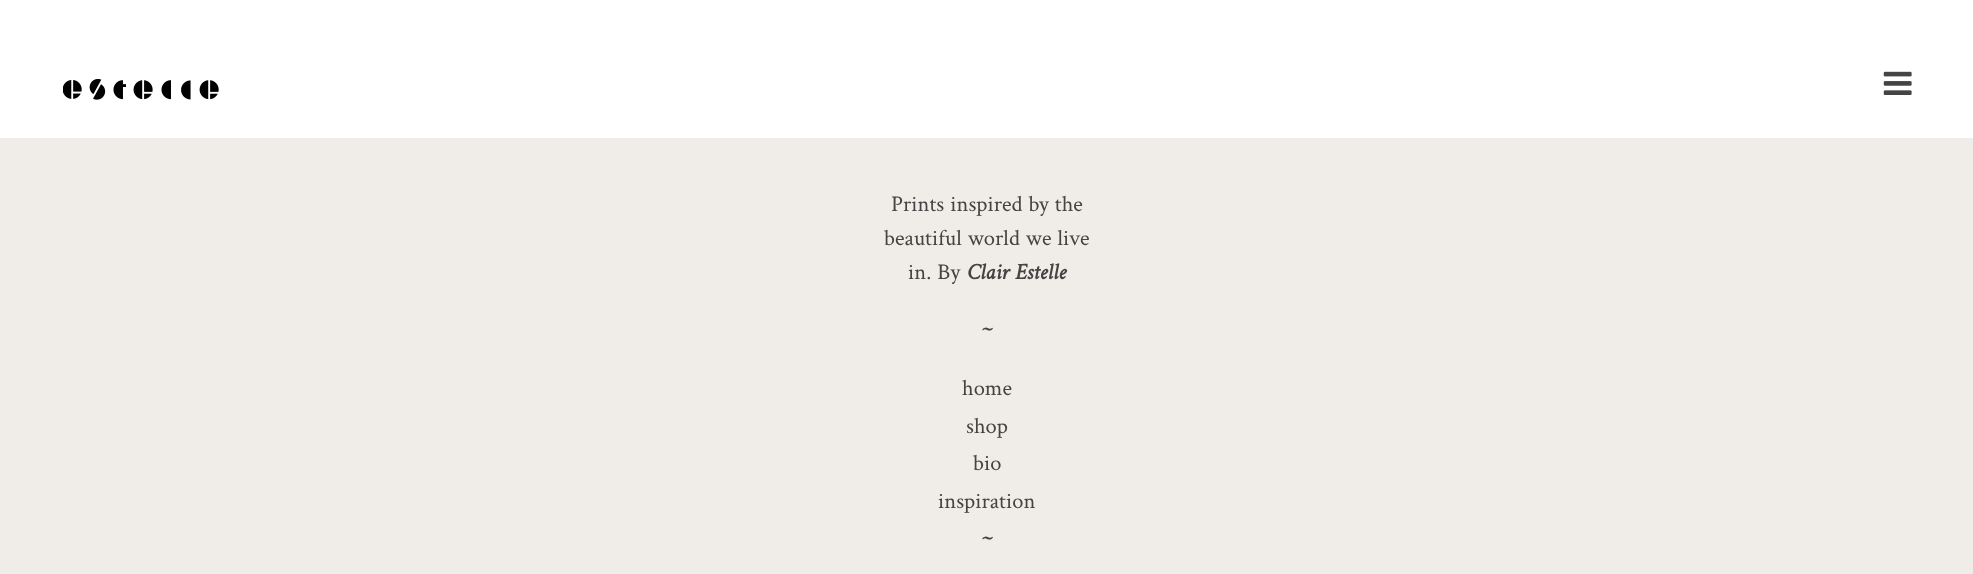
async function draw(canvas) {
  canvas.width = 1973;
  canvas.height = 574;
  const ctx = canvas.getContext('2d');
  ctx.miterLimit = 4;
  ctx.fontKerning = 'normal';
  function label(s, x, y, font, color) {
    ctx.font = font;
    ctx.fillStyle = color;
    ctx.fillText(s, x, y);
  }
  function rect(x, y, w, h, color) {
    ctx.fillStyle = color;
    ctx.fillRect(x, y, w, h);
  }
  async function image(src, x, y, w, h) {
    const img = new Image();
    img.src = src;
    await img.decode();
    ctx.drawImage(img, x, y, w, h);
  }

  rect(0, 0, 1973, 574, '#fff');
  await image('assets/img1.png', 63, 79, 156, 21);
  await image('assets/img2.png', 1883, 71, 29, 24);
  rect(0, 138, 1973, 436, '#f0ede8');
  ctx.wordSpacing = '1px';
  label('Prints inspired by the', 891, 211, '22.5px Crimson Text', '#444');
  label('beautiful world we live', 884, 245, '22.5px Crimson Text', '#444');
  label('in. By', 908, 279, '22.5px Crimson Text', '#444');
  label('Clair Estelle', 967, 279, 'italic bold 22.5px Crimson Text', '#444');
  ctx.wordSpacing = '0px';
  label('~', 982, 336, 'italic bold 22.5px Crimson Text', '#444');
  label('home', 962, 395, '22.5px Crimson Text', '#444');
  label('shop', 966, 433, '22.5px Crimson Text', '#444');
  label('bio', 973, 470, '22.5px Crimson Text', '#444');
  label('inspiration', 938, 508, '22.5px Crimson Text', '#444');
  label('~', 982, 545, 'italic bold 22.5px Crimson Text', '#444');
}

draw(document.querySelector('canvas'));
